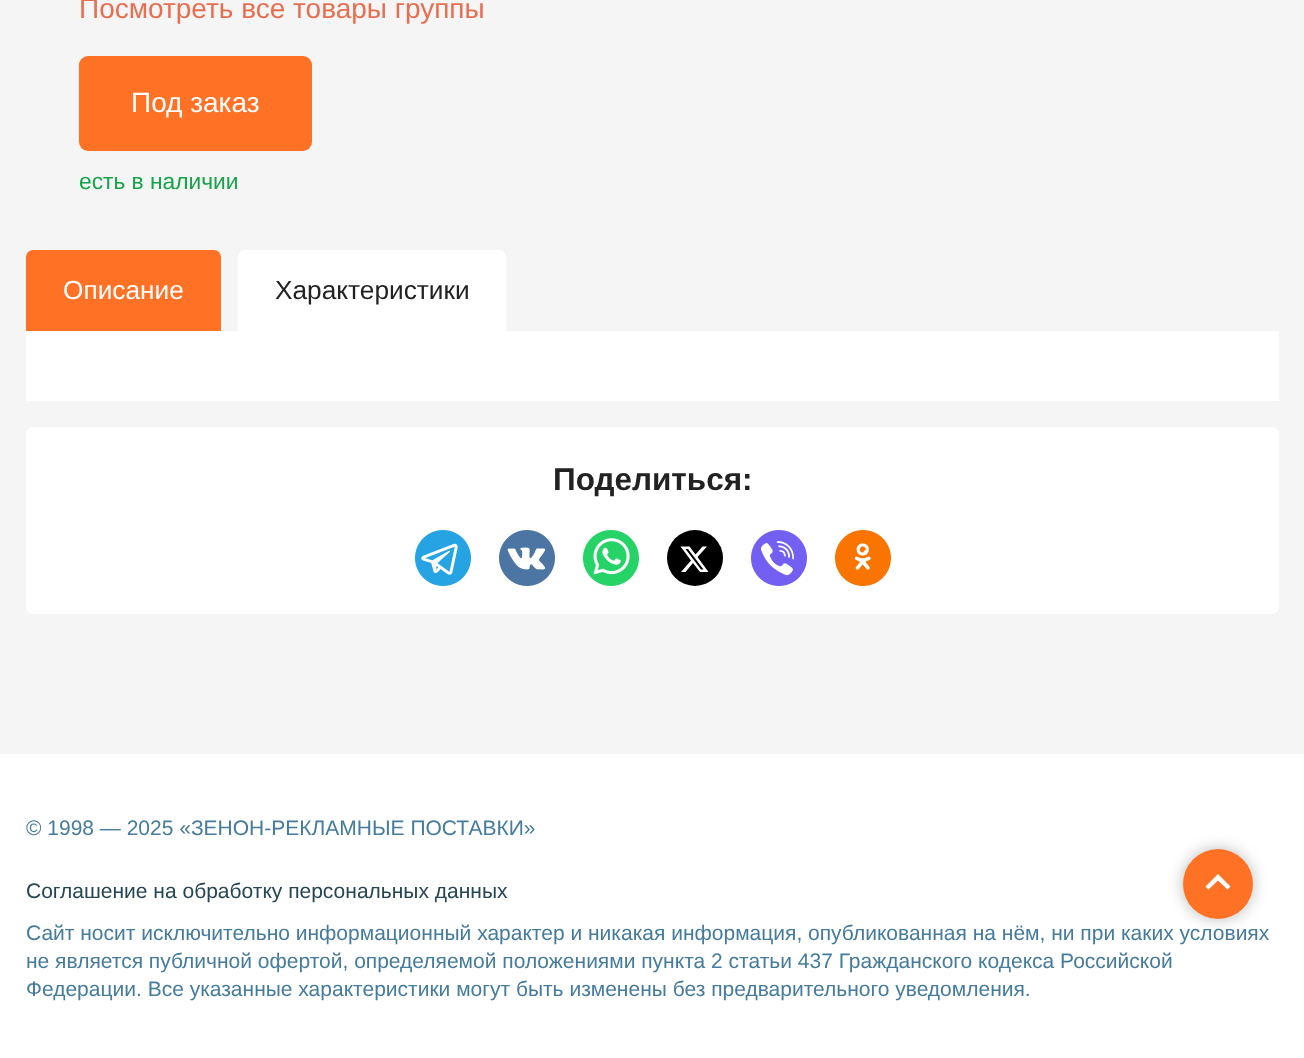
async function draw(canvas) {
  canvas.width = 1304;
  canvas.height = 1058;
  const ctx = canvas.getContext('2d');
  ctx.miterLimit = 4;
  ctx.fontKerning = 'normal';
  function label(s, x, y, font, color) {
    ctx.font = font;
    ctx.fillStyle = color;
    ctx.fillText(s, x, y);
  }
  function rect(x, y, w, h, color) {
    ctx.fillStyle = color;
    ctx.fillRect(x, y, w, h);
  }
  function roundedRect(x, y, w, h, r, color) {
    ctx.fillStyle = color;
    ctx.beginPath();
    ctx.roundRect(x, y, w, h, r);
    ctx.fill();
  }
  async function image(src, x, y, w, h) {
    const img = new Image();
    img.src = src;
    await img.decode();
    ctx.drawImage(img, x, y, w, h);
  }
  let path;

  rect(0, 0, 1304, 1058, '#f5f5f5');
  label('Посмотреть все товары группы', 79, 18, '28px Arimo', '#e76f51');
  roundedRect(79, 56, 233, 95, 9, '#ff7226');
  label('Под заказ', 131, 112, '28px Arimo', '#fff');
  label('есть в наличии', 79, 189, '22.75px Arimo', '#16a34a');
  ctx.fillStyle = '#ff7226';
  ctx.beginPath();
  ctx.roundRect(26, 250, 195, 81, [7, 7, 0, 0]);
  ctx.fill();
  label('Описание', 63, 299, '26.25px Arimo', '#fff');
  ctx.beginPath();
  ctx.roundRect(238, 250, 268, 81, [7, 7, 0, 0]);
  ctx.fill();
  label('Характеристики', 275, 299, '26.25px Arimo', '#222');
  rect(26, 331, 1253, 70, '#fff');
  roundedRect(26, 427, 1253, 187, 7, '#fff');
  label('Поделиться:', 553, 490, 'bold 31.5px Arimo', '#222');
  await image('assets/img1.png', 415, 530, 56, 56);
  await image('assets/img2.png', 499, 530, 56, 56);
  await image('assets/img3.png', 583, 530, 56, 56);
  ctx.fillStyle = '#000';
  ctx.beginPath();
  ctx.arc(695, 558, 28, 0, 2 * Math.PI);
  ctx.fill();
  ctx.fillStyle = '#fff';
  path = new Path2D('M702.5 546.5H707L697.5 557L708.5 572H700L693 563L685.5 572H681L691 560.5L680.5 546.5H689.5L695.5 554.5ZM701 569.5H703.5L688 549H685.5Z');
  ctx.fill(path);
  await image('assets/img4.png', 751, 530, 56, 56);
  await image('assets/img5.png', 835, 530, 56, 56);
  rect(0, 754, 1304, 304, '#fff');
  label('© 1998 — 2025 «ЗЕНОН-РЕКЛАМНЫЕ ПОСТАВКИ»', 26, 835, '21px Arimo', '#457b9d');
  label('Соглашение на обработку персональных данных', 26, 898, '21px Arimo', '#264653');
  label('Сайт носит исключительно информационный характер и никакая информация, опубликованная на нём, ни при каких условиях', 26, 940, '21px Arimo', '#457b9d');
  label('не является публичной офертой, определяемой положениями пункта 2 статьи 437 Гражданского кодекса Российской', 26, 968, '21px Arimo', '#457b9d');
  label('Федерации. Все указанные характеристики могут быть изменены без предварительного уведомления.', 26, 996, '21px Arimo', '#457b9d');
  ctx.fillStyle = '#00000033';
  ctx.filter = 'blur(7px)';
  ctx.beginPath();
  ctx.roundRect(1181, 847, 74, 74, 37);
  ctx.fill();
  ctx.filter = 'none';
  ctx.fillStyle = '#ff7226';
  ctx.beginPath();
  ctx.arc(1218, 884, 35, 0, 2 * Math.PI);
  ctx.fill();
  ctx.fillStyle = '#fff';
  path = new Path2D('M1205.5 886.5L1208.5 889.5L1218 880.5L1227.5 889.5L1230.5 886.5L1218 874Z');
  ctx.fill(path);
}

draw(document.querySelector('canvas'));
